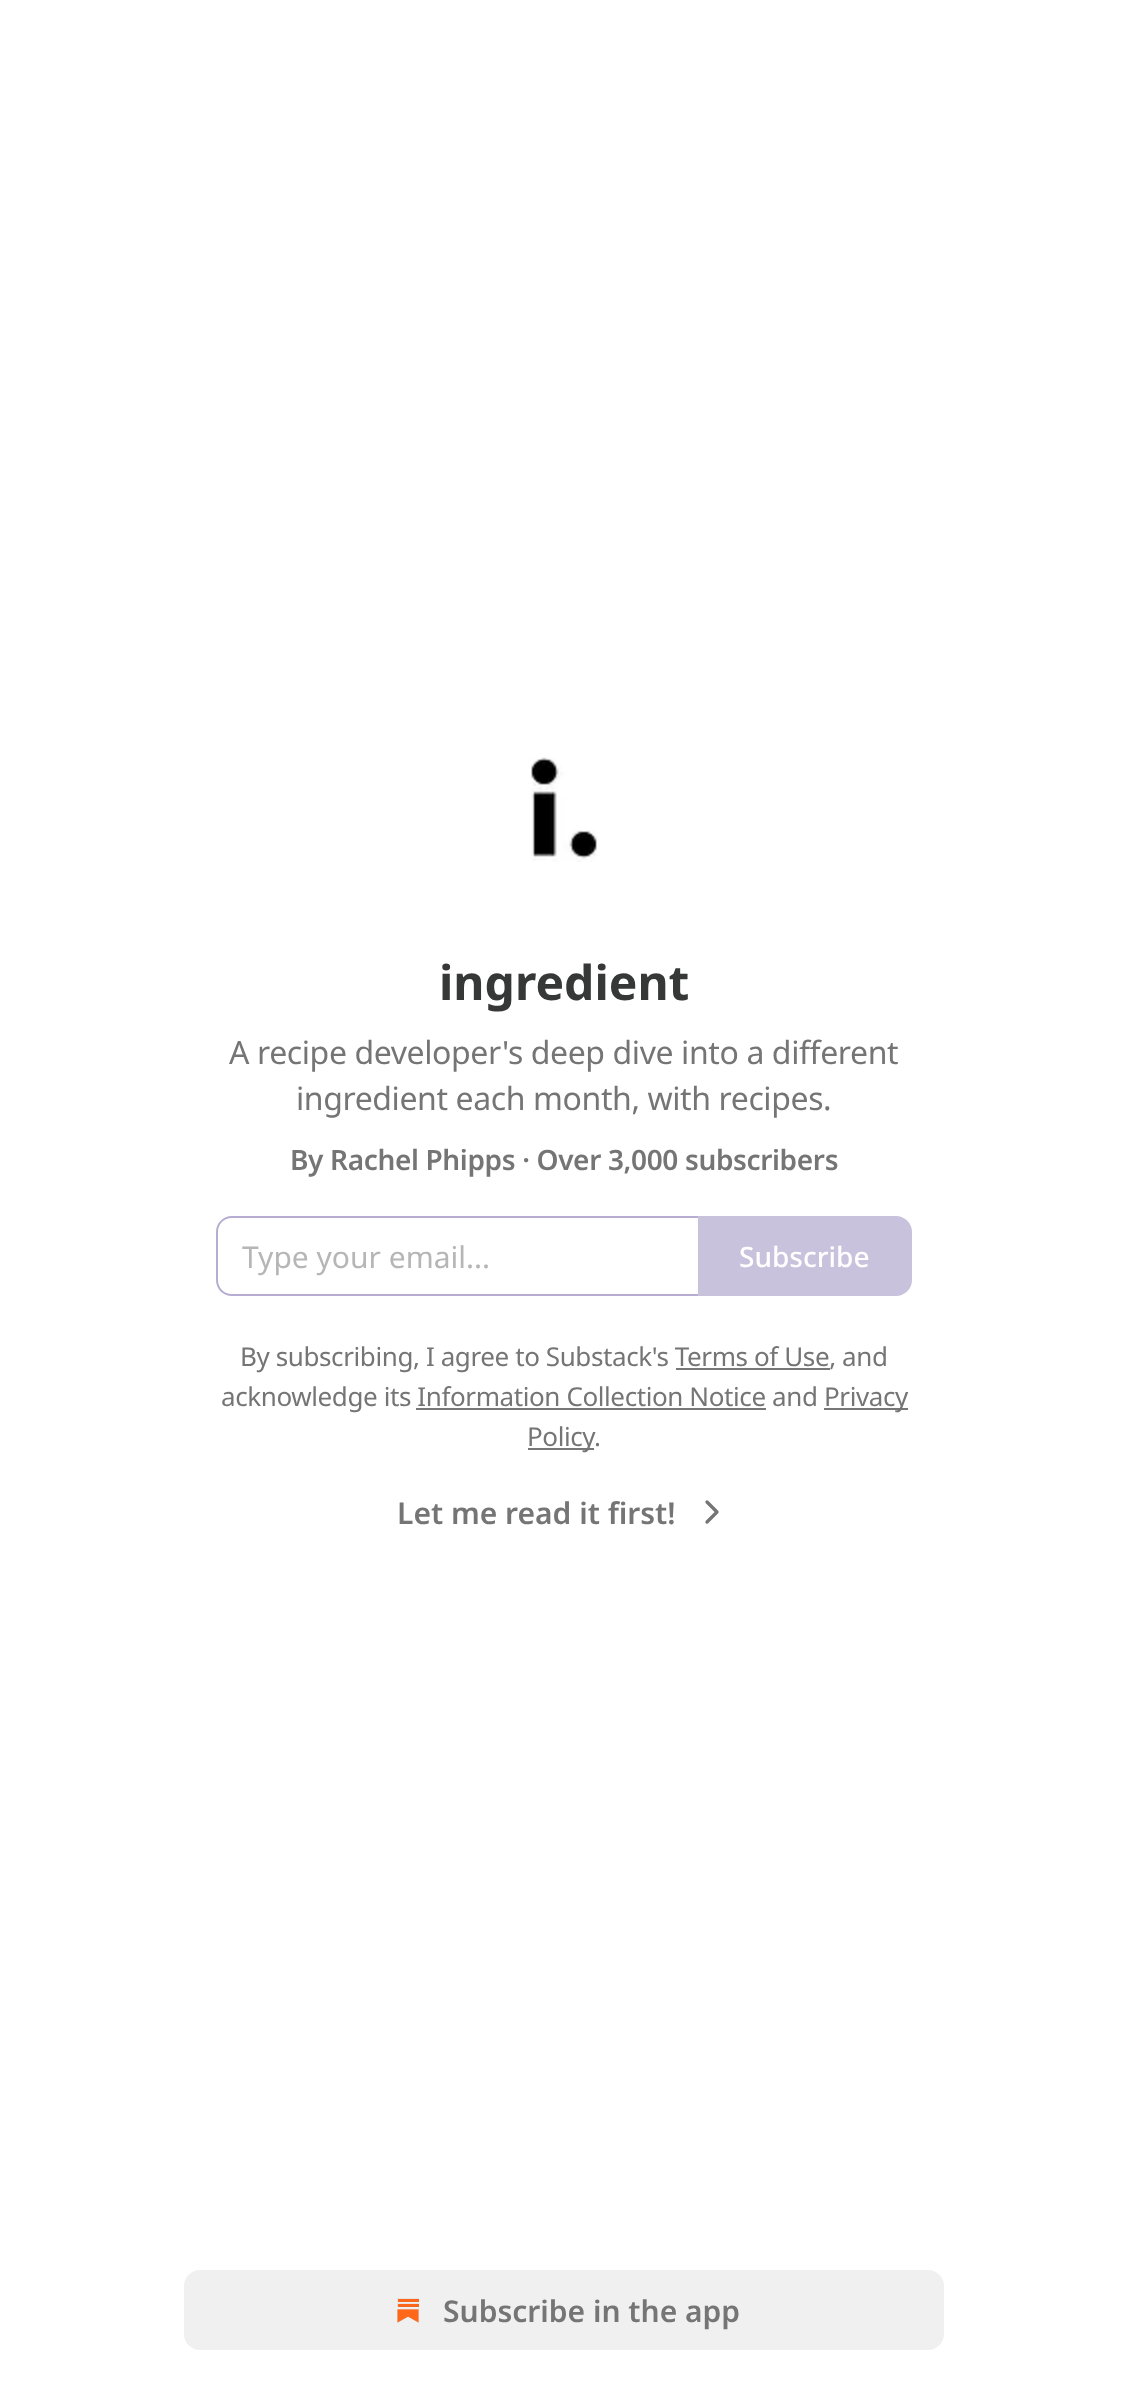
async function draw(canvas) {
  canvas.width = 1127;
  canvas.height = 2398;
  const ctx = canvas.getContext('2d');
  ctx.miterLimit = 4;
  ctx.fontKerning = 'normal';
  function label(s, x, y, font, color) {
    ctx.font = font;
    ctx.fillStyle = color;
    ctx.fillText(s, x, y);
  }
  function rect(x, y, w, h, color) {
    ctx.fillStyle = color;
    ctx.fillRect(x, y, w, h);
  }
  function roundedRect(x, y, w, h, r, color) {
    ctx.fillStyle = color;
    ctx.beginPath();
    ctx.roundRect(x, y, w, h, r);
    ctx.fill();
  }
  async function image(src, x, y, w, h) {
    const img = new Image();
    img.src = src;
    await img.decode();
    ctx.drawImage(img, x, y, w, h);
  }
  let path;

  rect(0, 0, 1127, 2398, '#fff');
  await image('assets/img1.png', 531, 757, 66, 105);
  label('ingredient', 439, 1000, 'bold 48px Noto Sans', '#363737');
  ctx.letterSpacing = '-0.4px';
  label('A recipe developer\'s deep dive into a different', 229, 1064, '32px Noto Sans', '#757575');
  label('ingredient each month, with recipes.', 296, 1110, '32px Noto Sans', '#757575');
  ctx.letterSpacing = '-0.35px';
  label('By Rachel Phipps · Over 3,000 subscribers', 290, 1170, '600 28px Noto Sans', '#757575');
  ctx.fillStyle = '#b7add2';
  path = new Path2D('M232 1216H698V1296H232C223 1296 216 1289 216 1280V1232C216 1223 223 1216 232 1216ZM232 1218H698V1294H232C224 1294 218 1288 218 1280V1232C218 1224 224 1218 232 1218Z');
  ctx.fill(path, 'evenodd');
  ctx.letterSpacing = '0px';
  label('Type your email...', 242, 1268, '30px Noto Sans', '#b6b6b6');
  ctx.fillStyle = '#c9c2dd';
  ctx.beginPath();
  ctx.roundRect(699, 1217, 212, 78, [0, 15, 15, 0]);
  ctx.fill();
  ctx.strokeStyle = '#c9c2dd';
  ctx.lineWidth = 2;
  ctx.stroke();
  label('Subscribe', 739, 1267, '500 28px Noto Sans', '#fff');
  ctx.letterSpacing = '-0.4px';
  label('By subscribing, I agree to Substack\'s Terms of Use, and', 240, 1366, '26px Noto Sans', '#757575');
  rect(676, 1368, 154, 2, '#777');
  label('acknowledge its Information Collection Notice and', 221, 1406, '26px Noto Sans', '#757575');
  rect(824, 1408, 84, 2, '#777');
  label('Privacy', 824, 1406, '26px Noto Sans', '#757575');
  rect(416, 1408, 350, 2, '#777');
  rect(528, 1448, 66, 2, '#777');
  label('Policy', 527, 1446, '26px Noto Sans', '#757575');
  label('.', 594, 1446, '26px Noto Sans', '#757575');
  ctx.letterSpacing = '0px';
  label('Let me read it first!', 397, 1524, '600 30px Noto Sans', '#757575');
  path = new Path2D('M707 1522L717 1512L707 1502');
  ctx.strokeStyle = '#757575';
  ctx.lineWidth = 3.3;
  ctx.lineCap = 'round';
  ctx.lineJoin = 'round';
  ctx.stroke(path);
  roundedRect(184, 2270, 760, 80, 16, '#f0f0f0');
  await image('assets/img2.png', 397, 2298, 22, 25);
  label('Subscribe in the app', 443, 2322, '600 30px Noto Sans', '#757575');
}

draw(document.querySelector('canvas'));
